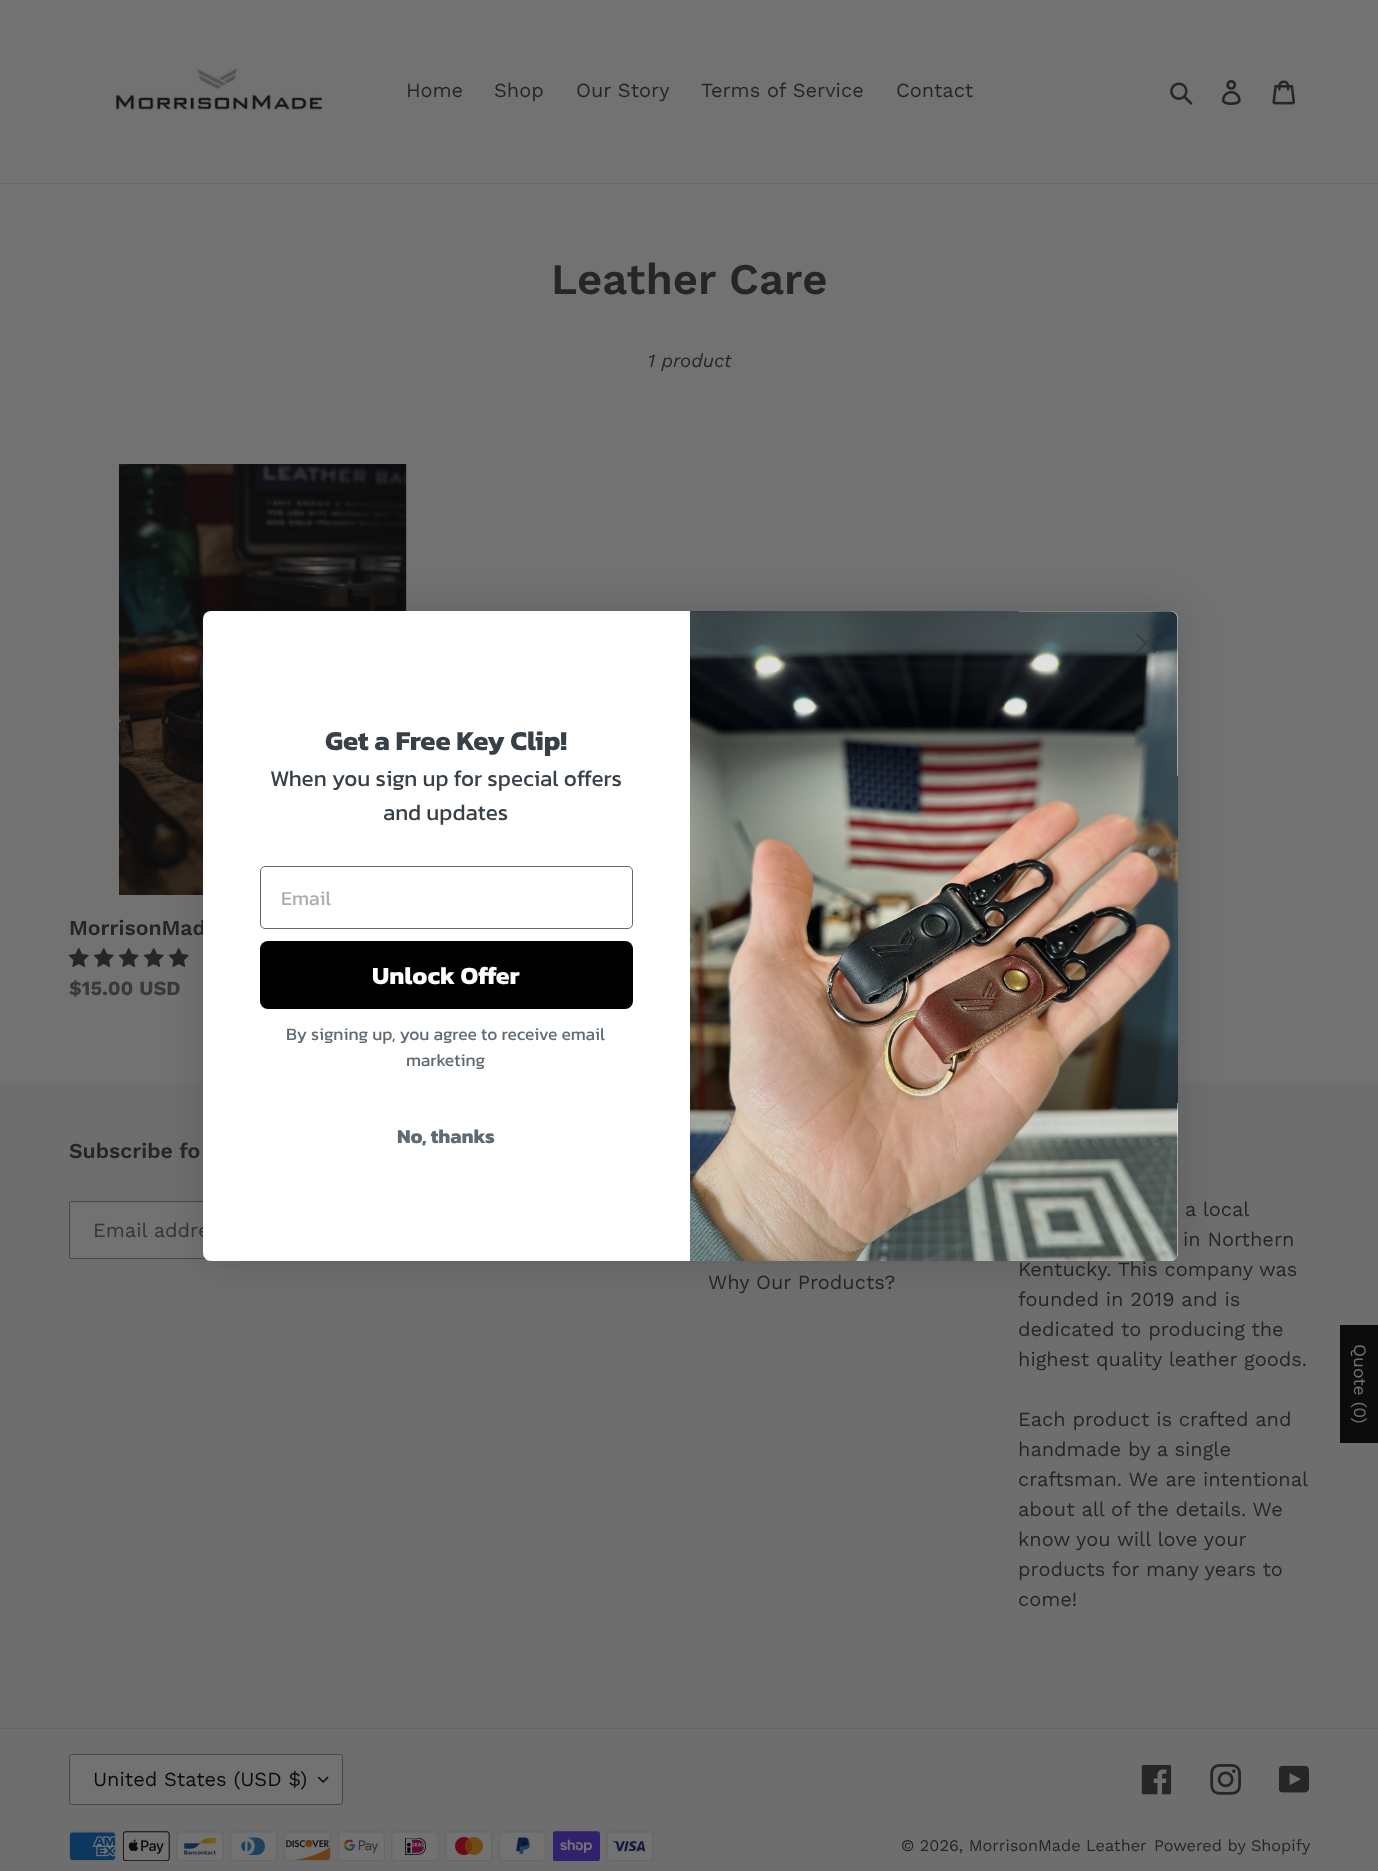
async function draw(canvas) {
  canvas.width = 1378;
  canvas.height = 1871;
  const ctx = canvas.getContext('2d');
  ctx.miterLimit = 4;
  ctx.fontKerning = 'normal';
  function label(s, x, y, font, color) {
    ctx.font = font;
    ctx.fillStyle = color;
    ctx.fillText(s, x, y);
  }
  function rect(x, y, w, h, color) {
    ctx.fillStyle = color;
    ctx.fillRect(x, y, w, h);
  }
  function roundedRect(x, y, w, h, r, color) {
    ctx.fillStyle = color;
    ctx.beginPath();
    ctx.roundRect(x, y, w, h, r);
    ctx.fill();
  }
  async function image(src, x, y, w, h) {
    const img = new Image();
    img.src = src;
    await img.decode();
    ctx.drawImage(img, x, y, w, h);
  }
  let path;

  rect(0, 0, 1378, 1871, '#727272');
  rect(0, 183, 1378, 1, '#69696a');
  await image('assets/img1.png', 116, 68, 208, 44);
  label('Home', 406, 97, '20px Work Sans', '#242628');
  label('Shop', 494, 97, '20px Work Sans', '#242628');
  label('Our Story', 576, 97, '20px Work Sans', '#242628');
  label('Terms of Service', 701, 97, '20px Work Sans', '#242628');
  label('Contact', 896, 97, '20px Work Sans', '#242628');
  await image('assets/img2.png', 1170, 82, 23, 23);
  await image('assets/img3.png', 1221, 80, 20, 25);
  await image('assets/img4.png', 1272, 80, 23, 25);
  label('Leather Care', 551, 294, '600 43.75px Work Sans', '#242628');
  label('1 product', 648, 367, 'italic 18.75px Work Sans', '#242628');
  await image('assets/img5.png', 119, 464, 288, 431);
  label('MorrisonMad', 69, 935, '600 21.25px Work Sans', '#242628');
  await image('assets/img6.png', 68, 948, 21, 19);
  await image('assets/img6.png', 93, 948, 21, 19);
  await image('assets/img6.png', 118, 948, 21, 19);
  await image('assets/img6.png', 143, 948, 21, 19);
  await image('assets/img6.png', 168, 948, 21, 19);
  label('$15.00 USD', 69, 995, 'bold 20px Work Sans', '#363a3d');
  rect(0, 1083, 1378, 788, '#6e6e6e');
  label('Subscribe fo', 69, 1158, '600 21.25px Work Sans', '#242628');
  ctx.fillStyle = '#727272';
  ctx.beginPath();
  ctx.roundRect(69.5, 1201.5, 441, 57, [2, 0, 0, 2]);
  ctx.fill();
  ctx.strokeStyle = '#474747';
  ctx.stroke();
  label('Email addre', 93, 1237, '20px Work Sans', '#353535');
  label('Why Our Products?', 708, 1289, '20px Work Sans', '#242628');
  label('a local', 1185, 1216, '20px Work Sans', '#242628');
  label('in Northern', 1183, 1246, '20px Work Sans', '#242628');
  label('Kentucky. This company was', 1018, 1276, '20px Work Sans', '#242628');
  label('founded in 2019 and is', 1018, 1306, '20px Work Sans', '#242628');
  label('dedicated to producing the', 1018, 1336, '20px Work Sans', '#242628');
  label('highest quality leather goods.', 1018, 1366, '20px Work Sans', '#242628');
  label('Each product is crafted and', 1018, 1426, '20px Work Sans', '#242628');
  label('handmade by a single', 1018, 1456, '20px Work Sans', '#242628');
  label('craftsman. We are intentional', 1018, 1486, '20px Work Sans', '#242628');
  label('about all of the details. We', 1018, 1516, '20px Work Sans', '#242628');
  label('know you will love your', 1018, 1546, '20px Work Sans', '#242628');
  label('products for many years to', 1018, 1576, '20px Work Sans', '#242628');
  label('come!', 1018, 1606, '20px Work Sans', '#242628');
  rect(0, 1728, 1378, 1, '#646464');
  roundedRect(69, 1754, 274, 51, 2.5, '#727272');
  await image('assets/img7.png', 318, 1776, 11, 7);
  ctx.beginPath();
  ctx.roundRect(69.5, 1754.5, 273, 50, 2);
  ctx.stroke();
  label('United States (USD $)', 93, 1786, '20px Work Sans', '#0c0c0c');
  await image('assets/img8.png', 1141, 1765, 31, 30);
  await image('assets/img9.png', 1210, 1764, 31, 31);
  await image('assets/img10.png', 1279, 1765, 30, 28);
  await image('assets/img11.png', 69, 1831, 47, 30);
  await image('assets/img12.png', 123, 1831, 47, 30);
  await image('assets/img13.png', 176, 1831, 48, 30);
  await image('assets/img14.png', 230, 1831, 48, 30);
  await image('assets/img15.png', 284, 1831, 47, 30);
  await image('assets/img16.png', 338, 1831, 47, 30);
  await image('assets/img17.png', 391, 1831, 48, 30);
  await image('assets/img18.png', 445, 1831, 48, 30);
  await image('assets/img19.png', 499, 1831, 47, 30);
  await image('assets/img20.png', 553, 1831, 47, 30);
  await image('assets/img21.png', 606, 1831, 48, 30);
  label('© 2026, MorrisonMade Leather', 901, 1851, '16.25px Work Sans', '#242628');
  label('Powered by Shopify', 1154, 1851, '16.25px Work Sans', '#242628');
  ctx.fillStyle = '#00000026';
  ctx.filter = 'blur(19px)';
  ctx.beginPath();
  ctx.roundRect(203, 611, 975, 650, 8);
  ctx.fill();
  ctx.filter = 'none';
  roundedRect(203, 611, 975, 650, 8, '#fff');
  await image('assets/img22.png', 690, 611, 488, 650);
  path = new Path2D('M1137 634.5L1154.5 652M1137 652L1154.5 634.5Z');
  ctx.strokeStyle = '#373f47';
  ctx.lineWidth = 2.2;
  ctx.lineCap = 'round';
  ctx.lineJoin = 'round';
  ctx.stroke(path);
  label('Get a Free Key Clip!', 325, 750, 'bold 27.5px Kanit', '#373f47');
  label('When you sign up for special offers', 270, 786, '22.5px Kanit', '#373f47');
  label('and updates', 383, 820, '22.5px Kanit', '#373f47');
  ctx.beginPath();
  ctx.roundRect(260.5, 866.5, 372, 62, 4.5);
  ctx.strokeStyle = '#606a72';
  ctx.lineWidth = 1;
  ctx.lineJoin = 'miter';
  ctx.stroke();
  label('Email', 281, 905, '20px Kanit', '#adadad');
  roundedRect(260, 941, 373, 68, 8, '#000');
  label('Unlock Offer', 372, 984, 'bold 25px Kanit', '#fff');
  label('By signing up, you agree to receive email', 286, 1040, '17.5px Kanit', '#606a72');
  label('marketing', 406, 1066, '17.5px Kanit', '#606a72');
  label('No, thanks', 397, 1143, 'bold 20px Kanit', '#606a72');
  rect(1340, 1325, 38, 118, '#0c0c0c');
  ctx.font = '17.5px Work Sans';
  ctx.fillStyle = '#727272';
  ctx.save();
  ctx.translate(1354, 1344);
  ctx.rotate(90 * Math.PI / 180);
  ctx.fillText('Quote (0)', 0, 0);
  ctx.restore();
}

draw(document.querySelector('canvas'));
